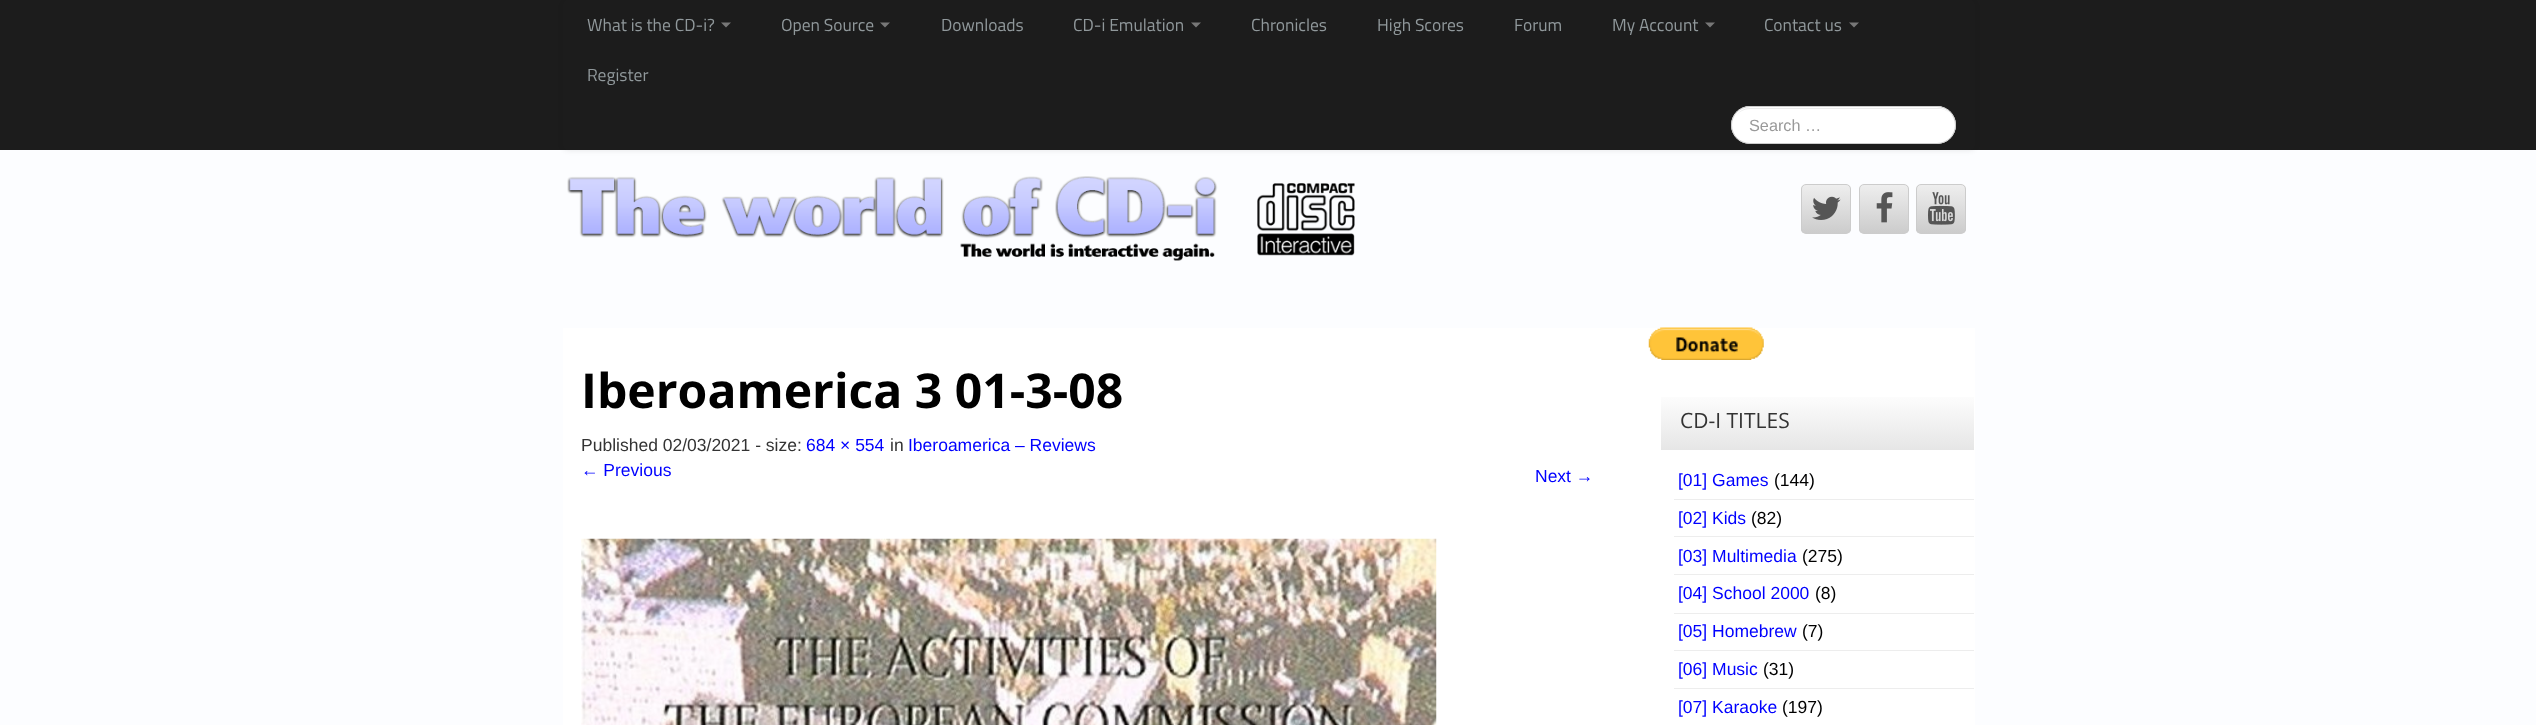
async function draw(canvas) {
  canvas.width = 2536;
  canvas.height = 725;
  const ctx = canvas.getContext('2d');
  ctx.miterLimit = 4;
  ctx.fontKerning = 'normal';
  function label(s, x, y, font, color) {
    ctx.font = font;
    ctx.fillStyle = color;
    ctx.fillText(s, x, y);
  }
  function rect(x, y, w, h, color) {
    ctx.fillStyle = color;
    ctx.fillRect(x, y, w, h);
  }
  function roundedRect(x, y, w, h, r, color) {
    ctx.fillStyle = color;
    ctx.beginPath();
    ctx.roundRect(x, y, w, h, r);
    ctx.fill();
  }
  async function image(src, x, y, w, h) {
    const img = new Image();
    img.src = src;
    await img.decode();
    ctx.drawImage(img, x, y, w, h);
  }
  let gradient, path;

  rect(0, 0, 2536, 725, '#fcfdff');
  rect(0, 0, 2536, 150, '#1c1c1c');
  ctx.save();
  path = new Path2D('M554 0H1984V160H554ZM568 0H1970C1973 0 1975 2 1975 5V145C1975 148 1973 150 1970 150H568C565 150 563 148 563 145V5C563 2 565 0 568 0Z');
  ctx.clip(path, 'evenodd');
  ctx.fillStyle = '#00000012';
  ctx.filter = 'blur(2.5px)';
  ctx.beginPath();
  ctx.roundRect(563, 1, 1412, 150, 5);
  ctx.fill();
  ctx.filter = 'none';
  ctx.restore();
  label('What is the CD-i?', 587, 31, '17.5px Titillium Web', '#90989b');
  ctx.fillStyle = '#777';
  path = new Path2D('M721 22.5H731L726 27.5Z');
  ctx.fill(path);
  label('Open Source', 781, 31, '17.5px Titillium Web', '#90989b');
  ctx.fillStyle = '#777';
  path = new Path2D('M880 22.5H890L885 27.5Z');
  ctx.fill(path);
  label('Downloads', 941, 31, '17.5px Titillium Web', '#90989b');
  label('CD-i Emulation', 1073, 31, '17.5px Titillium Web', '#90989b');
  ctx.fillStyle = '#777';
  path = new Path2D('M1191 22.5H1201L1196 27.5Z');
  ctx.fill(path);
  label('Chronicles', 1251, 31, '17.5px Titillium Web', '#90989b');
  label('High Scores', 1377, 31, '17.5px Titillium Web', '#90989b');
  label('Forum', 1514, 31, '17.5px Titillium Web', '#90989b');
  label('My Account', 1612, 31, '17.5px Titillium Web', '#90989b');
  ctx.fillStyle = '#777';
  path = new Path2D('M1705 22.5H1715L1710 27.5Z');
  ctx.fill(path);
  label('Contact us', 1764, 31, '17.5px Titillium Web', '#90989b');
  ctx.fillStyle = '#777';
  path = new Path2D('M1849 22.5H1859L1854 27.5Z');
  ctx.fill(path);
  label('Register', 587, 81, '17.5px Titillium Web', '#90989b');
  roundedRect(1731, 106, 225, 38, 19, '#fff');
  ctx.fillStyle = '#ececec';
  path = new Path2D('M1750 109H1941C1951 111 1956 119 1955 128V126C1955 116 1947 108 1938 108H1750C1744 108 1739 111 1736 116C1739 112 1744 109 1750 109Z');
  ctx.fill(path);
  ctx.beginPath();
  ctx.roundRect(1731.5, 106.5, 224, 37, 18.5);
  ctx.strokeStyle = '#ccc';
  ctx.stroke();
  label('Search …', 1749, 131, '16.25px Liberation Sans', '#999');
  await image('assets/img1.png', 567, 176, 788, 85);
  ctx.save();
  ctx.beginPath();
  ctx.roundRect(1801, 184, 50, 50, 5);
  ctx.clip();
  gradient = ctx.createLinearGradient(1826, 185, 1826, 233);
  gradient.addColorStop(0, '#eee');
  gradient.addColorStop(1, '#ccc');
  ctx.fillStyle = gradient;
  ctx.fillRect(1801, 185, 50, 48);
  ctx.restore();
  ctx.beginPath();
  ctx.roundRect(1801.5, 184.5, 49, 49, 4.5);
  ctx.stroke();
  await image('assets/img2.png', 1812, 196, 29, 24);
  ctx.save();
  ctx.beginPath();
  ctx.roundRect(1859, 184, 50, 50, 5);
  ctx.clip();
  gradient = ctx.createLinearGradient(1884, 185, 1884, 233);
  gradient.addColorStop(0, '#eee');
  gradient.addColorStop(1, '#ccc');
  ctx.fillStyle = gradient;
  ctx.fillRect(1859, 185, 50, 48);
  ctx.restore();
  ctx.beginPath();
  ctx.roundRect(1859.5, 184.5, 49, 49, 4.5);
  ctx.stroke();
  await image('assets/img3.png', 1876, 192, 17, 31);
  ctx.save();
  ctx.beginPath();
  ctx.roundRect(1916, 184, 50, 50, 5);
  ctx.clip();
  gradient = ctx.createLinearGradient(1941, 185, 1941, 233);
  gradient.addColorStop(0, '#eee');
  gradient.addColorStop(1, '#ccc');
  ctx.fillStyle = gradient;
  ctx.fillRect(1916, 185, 50, 48);
  ctx.restore();
  ctx.beginPath();
  ctx.roundRect(1916.5, 184.5, 49, 49, 4.5);
  ctx.stroke();
  await image('assets/img4.png', 1928, 192, 27, 33);
  rect(563, 328, 1412, 397, '#fff');
  label('Iberoamerica 3 01-3-08', 581, 408, 'bold 48.1px Open Sans', '#000');
  label('Published 02/03/2021 - size:', 581, 451, '17.5px Liberation Sans', '#333');
  label('684 × 554', 806, 451, '17.5px Liberation Sans', '#00f');
  label('in', 890, 451, '17.5px Liberation Sans', '#333');
  label('Iberoamerica – Reviews', 908, 451, '17.5px Liberation Sans', '#00f');
  label('← Previous', 581, 476, '17.5px Liberation Sans', '#00f');
  label('Next →', 1535, 482, '17.5px Liberation Sans', '#00f');
  await image('assets/img5.png', 581, 538, 856, 187);
  await image('assets/img6.png', 1648, 327, 116, 33);
  gradient = ctx.createLinearGradient(1818, 391, 1818, 450);
  gradient.addColorStop(0, '#fff');
  gradient.addColorStop(1, '#e6e6e6');
  ctx.fillStyle = gradient;
  ctx.fillRect(1661, 397, 313, 53);
  label('CD-I TITLES', 1680, 428, '21px Open Sans', '#333');
  rect(1674, 499, 300, 1, '#ededed');
  label('[01] Games', 1678, 486, '17.5px Liberation Sans', '#00f');
  label('(144)', 1774, 486, '17.5px Liberation Sans', '#000');
  rect(1674, 536, 300, 1, '#ededed');
  label('[02] Kids', 1678, 524, '17.5px Liberation Sans', '#00f');
  label('(82)', 1751, 524, '17.5px Liberation Sans', '#000');
  rect(1674, 574, 300, 1, '#ededed');
  label('[03] Multimedia', 1678, 562, '17.5px Liberation Sans', '#00f');
  label('(275)', 1802, 562, '17.5px Liberation Sans', '#000');
  rect(1674, 613, 300, 1, '#ededed');
  label('[04] School 2000', 1678, 599, '17.5px Liberation Sans', '#00f');
  label('(8)', 1815, 599, '17.5px Liberation Sans', '#000');
  rect(1674, 650, 300, 1, '#ededed');
  label('[05] Homebrew', 1678, 637, '17.5px Liberation Sans', '#00f');
  label('(7)', 1802, 637, '17.5px Liberation Sans', '#000');
  rect(1674, 688, 300, 1, '#ededed');
  label('[06] Music', 1678, 675, '17.5px Liberation Sans', '#00f');
  label('(31)', 1763, 675, '17.5px Liberation Sans', '#000');
  label('[07] Karaoke', 1678, 713, '17.5px Liberation Sans', '#00f');
  label('(197)', 1782, 713, '17.5px Liberation Sans', '#000');
}

draw(document.querySelector('canvas'));
